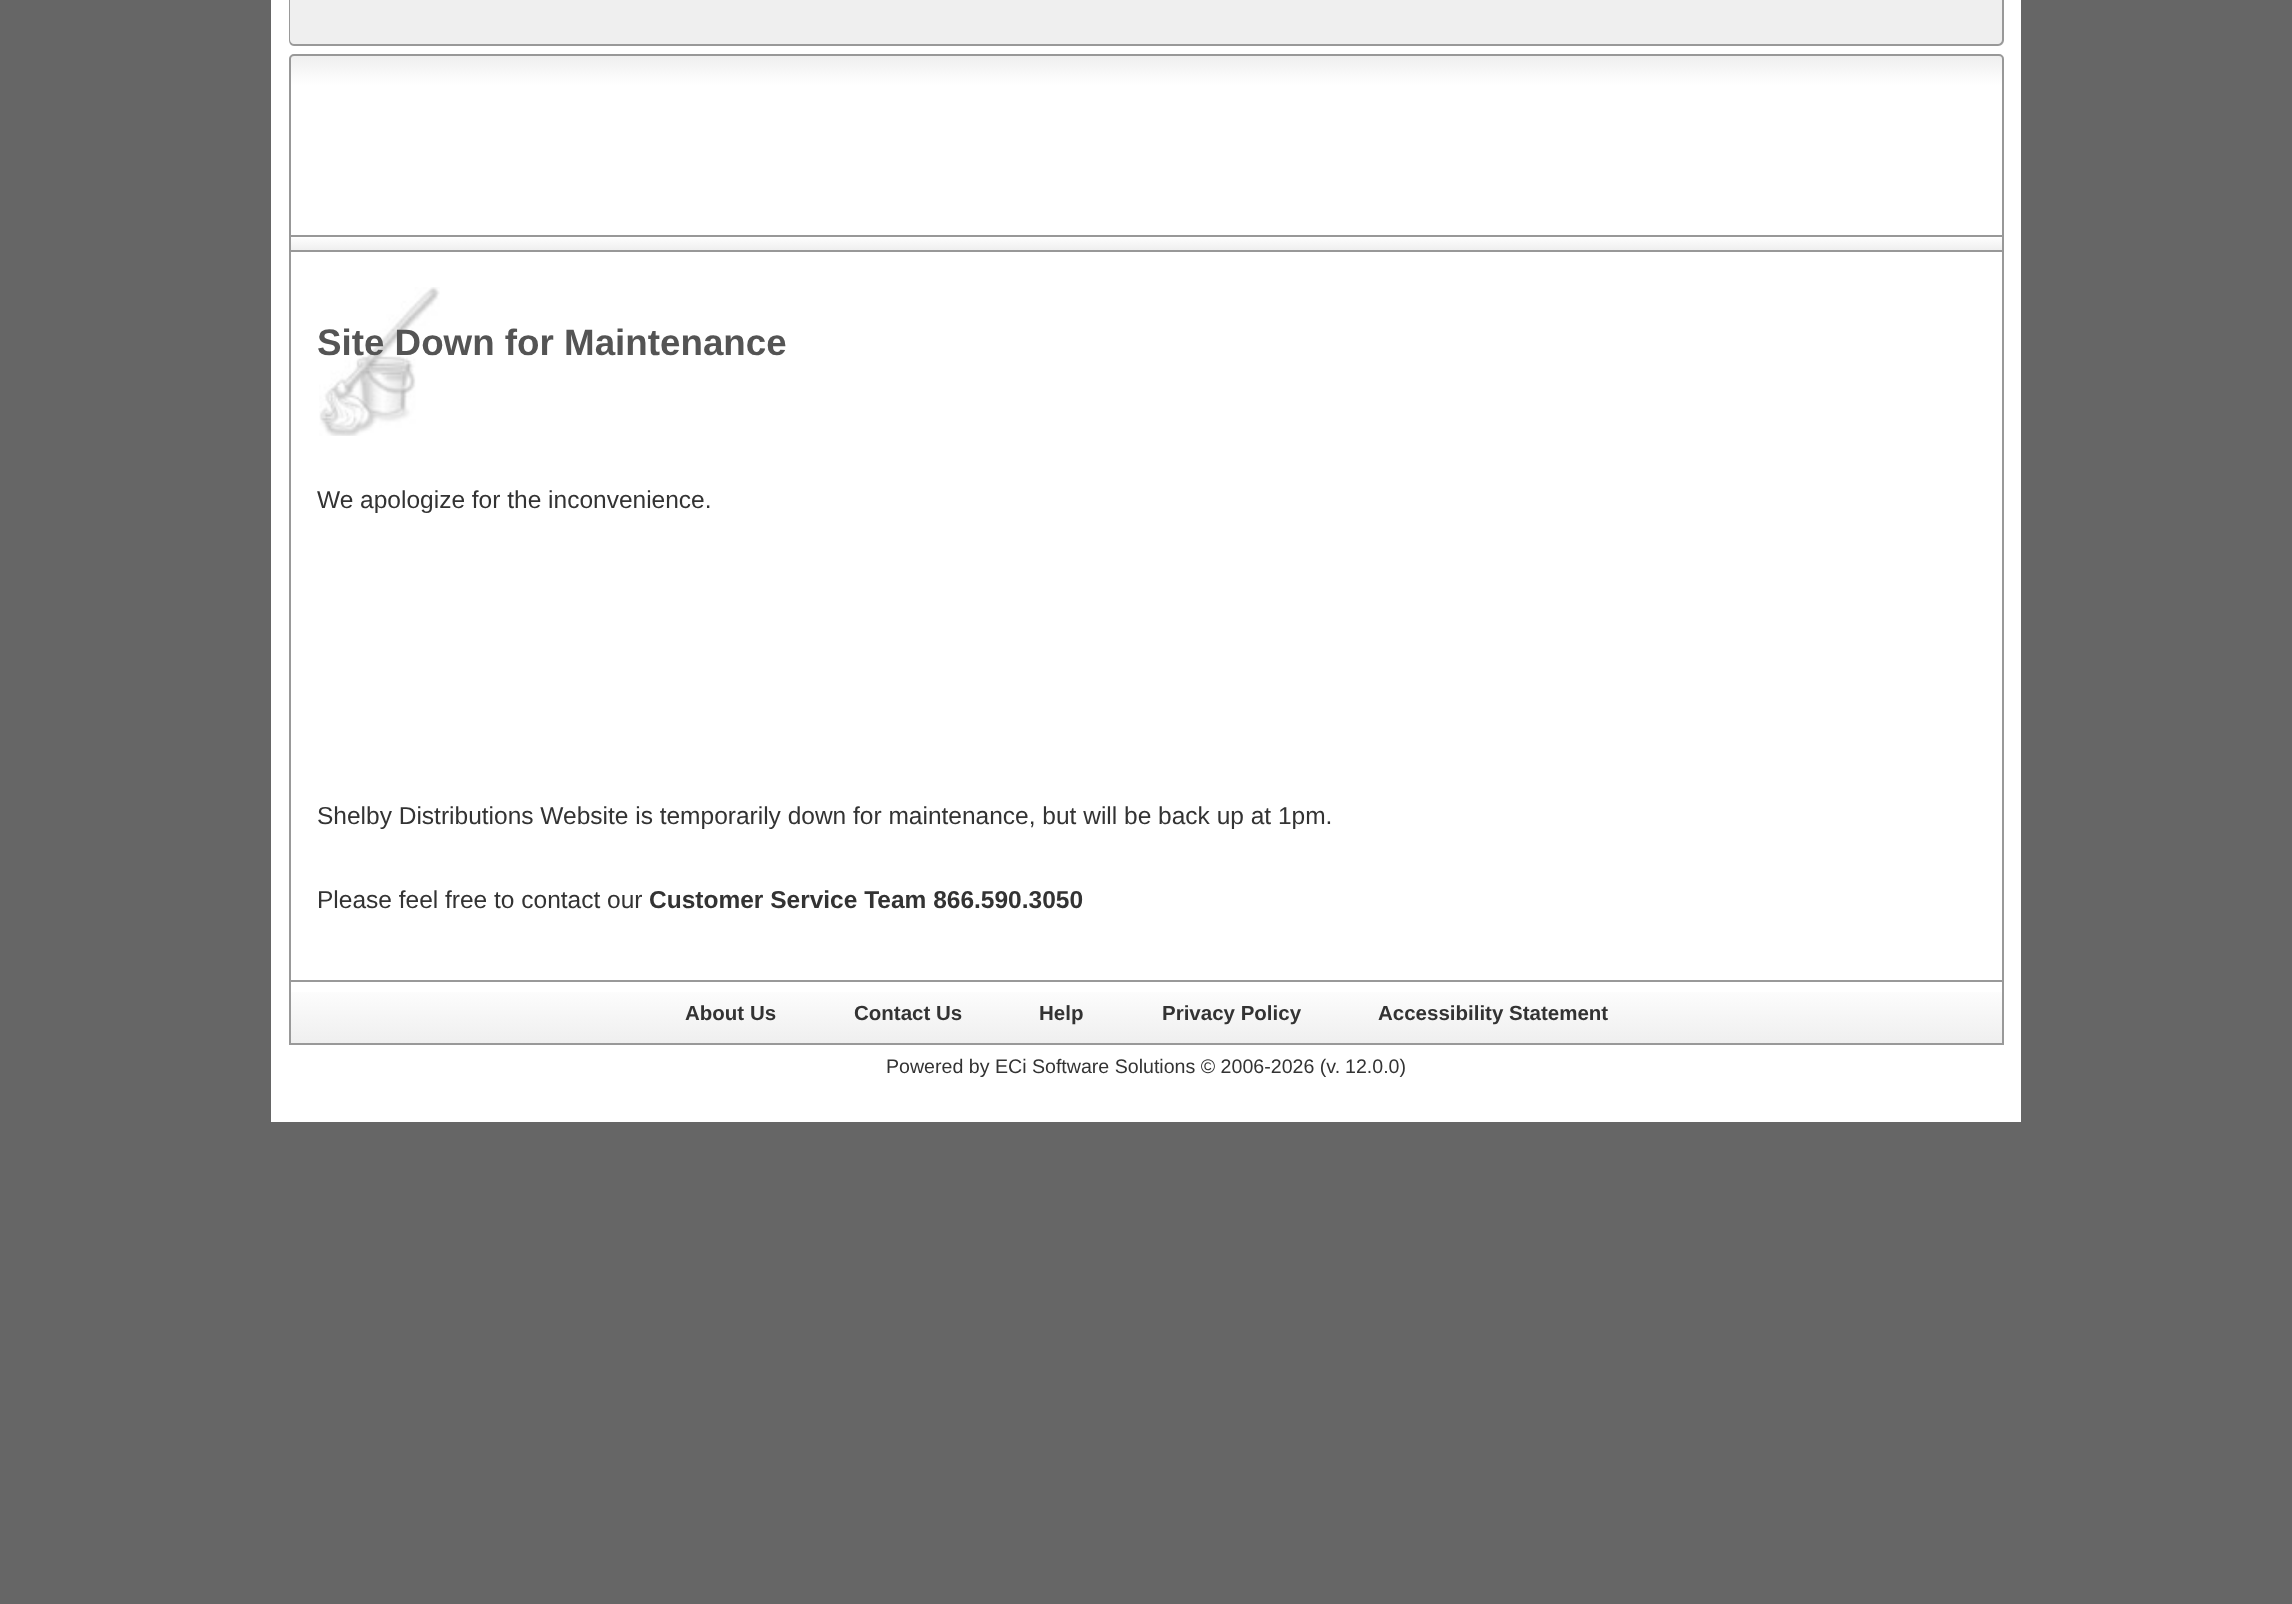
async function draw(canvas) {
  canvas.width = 2292;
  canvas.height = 1604;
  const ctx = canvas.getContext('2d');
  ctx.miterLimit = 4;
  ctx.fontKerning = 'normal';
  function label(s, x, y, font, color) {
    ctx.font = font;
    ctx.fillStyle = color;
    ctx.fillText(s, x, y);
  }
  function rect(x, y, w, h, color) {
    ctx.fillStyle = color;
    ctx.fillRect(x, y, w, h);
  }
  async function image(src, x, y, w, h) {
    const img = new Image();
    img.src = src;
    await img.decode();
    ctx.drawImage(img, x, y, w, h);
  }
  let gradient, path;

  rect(0, 0, 2292, 1604, '#666');
  rect(271, 0, 1750, 1122, '#fff');
  ctx.fillStyle = '#efefef';
  ctx.beginPath();
  ctx.roundRect(289, 0, 1715, 46, [0, 0, 5, 5]);
  ctx.fill();
  ctx.fillStyle = '#999';
  path = new Path2D('M289 0H2004V40C2004 43 2001 46 1998 46H294C291 46 289 43 289 40ZM290 0H2002V40C2002 42 2000 44 1998 44H294C292 44 290 42 290 40Z');
  ctx.fill(path, 'evenodd');
  ctx.save();
  ctx.beginPath();
  ctx.roundRect(289, 54, 1715, 198, [5, 5, 0, 0]);
  ctx.clip();
  gradient = ctx.createLinearGradient(291, 56, 291, 250);
  gradient.addColorStop(0, '#efefef');
  gradient.addColorStop(0.15, '#fff');
  ctx.fillStyle = gradient;
  ctx.fillRect(289, 56, 1715, 179);
  ctx.restore();
  ctx.beginPath();
  ctx.roundRect(290, 55, 1713, 196, [4, 4, 0, 0]);
  ctx.strokeStyle = '#989898';
  ctx.lineWidth = 2;
  ctx.stroke();
  gradient = ctx.createLinearGradient(291, 236, 291, 250);
  gradient.addColorStop(0, '#fff');
  gradient.addColorStop(1, '#efefef');
  ctx.fillStyle = gradient;
  ctx.fillRect(291, 238, 1711, 12);
  rect(291, 235, 1711, 2, '#989898');
  rect(2002, 252, 2, 728, '#999');
  rect(289, 252, 2, 728, '#999');
  await image('assets/img1.png', 319, 287, 121, 149);
  label('Site Down for Maintenance', 317, 355, 'bold 36.75px Liberation Sans', '#545454');
  label('We apologize for the inconvenience.', 317, 508, '24.5px Liberation Sans', '#333');
  label('Shelby Distributions Website is temporarily down for maintenance, but will be back up at 1pm.', 317, 824, '24.5px Liberation Sans', '#333');
  label('Please feel free to contact our', 317, 908, '24.5px Liberation Sans', '#333');
  label('Customer Service Team 866.590.3050', 649, 908, 'bold 24.5px Liberation Sans', '#333');
  ctx.strokeStyle = '#999';
  ctx.strokeRect(290, 981, 1713, 63);
  gradient = ctx.createLinearGradient(291, 982, 291, 1043);
  gradient.addColorStop(0, '#fff');
  gradient.addColorStop(1, '#efefef');
  ctx.fillStyle = gradient;
  ctx.fillRect(291, 992, 1711, 51);
  label('About Us', 685, 1020, 'bold 20.5px Liberation Sans', '#333');
  label('Contact Us', 854, 1020, 'bold 20.5px Liberation Sans', '#333');
  label('Help', 1039, 1020, 'bold 20.5px Liberation Sans', '#333');
  label('Privacy Policy', 1162, 1020, 'bold 20.5px Liberation Sans', '#333');
  label('Accessibility Statement', 1378, 1020, 'bold 20.5px Liberation Sans', '#333');
  label('Powered by ECi Software Solutions © 2006-2026 (v.', 886, 1073, '19.6px Liberation Sans', '#333');
  label('12.0.0)', 1345, 1073, '19.6px Liberation Sans', '#333');
}

draw(document.querySelector('canvas'));
